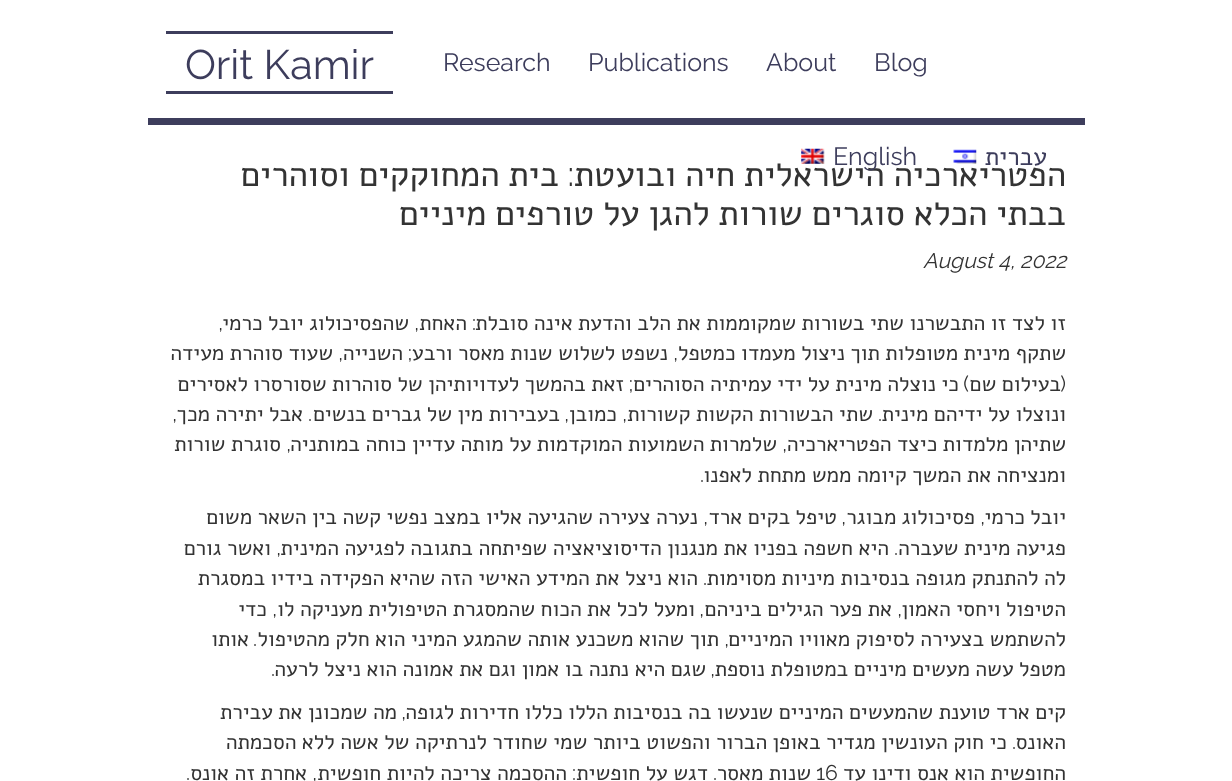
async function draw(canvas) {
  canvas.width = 1232;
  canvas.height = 781;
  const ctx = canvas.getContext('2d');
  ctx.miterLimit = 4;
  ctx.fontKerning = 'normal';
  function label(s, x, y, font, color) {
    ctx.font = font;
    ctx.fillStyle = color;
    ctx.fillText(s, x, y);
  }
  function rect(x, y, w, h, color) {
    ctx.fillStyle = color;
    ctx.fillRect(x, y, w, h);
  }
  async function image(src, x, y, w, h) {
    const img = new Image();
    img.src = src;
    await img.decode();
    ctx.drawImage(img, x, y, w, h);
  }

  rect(0, 0, 1232, 781, '#fff');
  rect(148, 118, 937, 7, '#3d3d5c');
  label('Blog', 874, 71, '100 25px Raleway', '#3d3d5c');
  label('About', 766, 71, '100 25px Raleway', '#3d3d5c');
  label('Publications', 588, 71, '100 25px Raleway', '#3d3d5c');
  label('Research', 443, 71, '100 25px Raleway', '#3d3d5c');
  ctx.direction = 'rtl';
  label('עברית', 1047, 165, '25px Alef', '#3d3d5c');
  ctx.wordSpacing = '-1px';
  label('הפטריארכיה הישראלית חיה ובועטת', 1066, 186, '35px Alef', '#333');
  await image('assets/img1.png', 953, 149, 24, 15);
  ctx.wordSpacing = '0px';
  ctx.direction = 'ltr';
  label('English', 833, 165, '100 25px Raleway', '#3d3d5c');
  await image('assets/img2.png', 801, 148, 24, 16);
  rect(166, 31, 227, 3, '#3d3d5c');
  rect(166, 91, 227, 3, '#3d3d5c');
  label('Orit Kamir', 185, 79, '100 41.25px Raleway', '#3d3d5c');
  ctx.direction = 'rtl';
  label(':', 574, 186, '100 35px Raleway', '#333');
  ctx.wordSpacing = '-1px';
  label('בית המחוקקים וסוהרים', 559, 186, '35px Alef', '#333');
  label('בבתי הכלא סוגרים שורות להגן על טורפים מיניים', 1066, 225, '35px Alef', '#333');
  ctx.wordSpacing = '0px';
  ctx.direction = 'ltr';
  label('August 4, 2022', 923, 268, 'italic 100 21.25px Raleway', '#333');
  ctx.wordSpacing = '-0.5px';
  ctx.direction = 'rtl';
  label('זו לצד זו התבשרנו שתי בשורות שמקוממות את הלב והדעת אינה סובלת', 1066, 330, '21.25px Alef', '#333');
  ctx.wordSpacing = '0px';
  label(':', 476, 330, '100 21.25px Raleway', '#333');
  label('האחת', 467, 330, '21.25px Alef', '#333');
  label(',', 419, 330, '100 21.25px Raleway', '#333');
  ctx.wordSpacing = '-0.5px';
  label('שהפסיכולוג יובל כרמי', 409, 330, '21.25px Alef', '#333');
  ctx.wordSpacing = '0px';
  label(',', 223, 330, '100 21.25px Raleway', '#333');
  ctx.wordSpacing = '-0.5px';
  label('שתקף מינית מטופלות תוך ניצול מעמדו כמטפל', 1066, 360, '21.25px Alef', '#333');
  ctx.wordSpacing = '0px';
  label(',', 678, 360, '100 21.25px Raleway', '#333');
  ctx.wordSpacing = '-0.5px';
  label('נשפט לשלוש שנות מאסר ורבע', 668, 360, '21.25px Alef', '#333');
  ctx.wordSpacing = '0px';
  label(';', 412, 360, '100 21.25px Raleway', '#333');
  label('השנייה', 403, 360, '21.25px Alef', '#333');
  label(',', 343, 360, '100 21.25px Raleway', '#333');
  ctx.wordSpacing = '-0.5px';
  label('שעוד סוהרת מעידה', 333, 360, '21.25px Alef', '#333');
  ctx.wordSpacing = '0px';
  label('(', 1066, 391, '100 21.25px Raleway', '#333');
  ctx.wordSpacing = '-0.5px';
  label('בעילום שם', 1061, 391, '21.25px Alef', '#333');
  ctx.wordSpacing = '0px';
  label(')', 969, 391, '100 21.25px Raleway', '#333');
  ctx.wordSpacing = '-0.5px';
  label('כי נוצלה מינית על ידי עמיתיה הסוהרים', 959, 391, '21.25px Alef', '#333');
  ctx.wordSpacing = '0px';
  label(';', 633, 391, '100 21.25px Raleway', '#333');
  ctx.wordSpacing = '-0.5px';
  label('זאת בהמשך לעדויותיהן של סוהרות שסורסרו לאסירים', 624, 391, '21.25px Alef', '#333');
  label('ונוצלו על ידיהם מינית', 1066, 421, '21.25px Alef', '#333');
  ctx.wordSpacing = '0px';
  label('.', 882, 421, '100 21.25px Raleway', '#333');
  ctx.wordSpacing = '-0.5px';
  label('שתי הבשורות הקשות קשורות', 873, 421, '21.25px Alef', '#333');
  ctx.wordSpacing = '0px';
  label(',', 627, 421, '100 21.25px Raleway', '#333');
  label('כמובן', 617, 421, '21.25px Alef', '#333');
  label(',', 569, 421, '100 21.25px Raleway', '#333');
  ctx.wordSpacing = '-0.5px';
  label('בעבירות מין של גברים בנשים', 560, 421, '21.25px Alef', '#333');
  ctx.wordSpacing = '0px';
  label('.', 312, 421, '100 21.25px Raleway', '#333');
  ctx.wordSpacing = '-0.5px';
  label('אבל יתירה מכך', 303, 421, '21.25px Alef', '#333');
  ctx.wordSpacing = '0px';
  label(',', 177, 421, '100 21.25px Raleway', '#333');
  ctx.wordSpacing = '-0.5px';
  label('שתיהן מלמדות כיצד הפטריארכיה', 1066, 451, '21.25px Alef', '#333');
  ctx.wordSpacing = '0px';
  label(',', 787, 451, '100 21.25px Raleway', '#333');
  ctx.wordSpacing = '-0.5px';
  label('שלמרות השמועות המוקדמות על מותה עדיין כוחה במותניה', 777, 451, '21.25px Alef', '#333');
  ctx.wordSpacing = '0px';
  label(',', 291, 451, '100 21.25px Raleway', '#333');
  ctx.wordSpacing = '-0.5px';
  label('סוגרת שורות', 281, 451, '21.25px Alef', '#333');
  label('ומנציחה את המשך קיומה ממש מתחת לאפנו', 1066, 482, '21.25px Alef', '#333');
  ctx.wordSpacing = '0px';
  label('.', 704, 482, '100 21.25px Raleway', '#333');
  ctx.wordSpacing = '-0.5px';
  label('יובל כרמי', 1066, 524, '21.25px Alef', '#333');
  ctx.wordSpacing = '0px';
  label(',', 985, 524, '100 21.25px Raleway', '#333');
  ctx.wordSpacing = '-0.5px';
  label('פסיכולוג מבוגר', 975, 524, '21.25px Alef', '#333');
  ctx.wordSpacing = '0px';
  label(',', 846, 524, '100 21.25px Raleway', '#333');
  ctx.wordSpacing = '-0.5px';
  label('טיפל בקים ארד', 837, 524, '21.25px Alef', '#333');
  ctx.wordSpacing = '0px';
  label(',', 708, 524, '100 21.25px Raleway', '#333');
  ctx.wordSpacing = '-0.5px';
  label('נערה צעירה שהגיעה אליו במצב נפשי קשה בין השאר משום', 698, 524, '21.25px Alef', '#333');
  label('פגיעה מינית שעברה', 1066, 555, '21.25px Alef', '#333');
  ctx.wordSpacing = '0px';
  label('.', 898, 555, '100 21.25px Raleway', '#333');
  ctx.wordSpacing = '-0.5px';
  label('היא חשפה בפניו את מנגנון הדיסוציאציה שפיתחה בתגובה לפגיעה המינית', 889, 555, '21.25px Alef', '#333');
  ctx.wordSpacing = '0px';
  label(',', 281, 555, '100 21.25px Raleway', '#333');
  ctx.wordSpacing = '-0.5px';
  label('ואשר גורם', 271, 555, '21.25px Alef', '#333');
  label('לה להתנתק מגופה בנסיבות מיניות מסוימות', 1066, 585, '21.25px Alef', '#333');
  ctx.wordSpacing = '0px';
  label('.', 707, 585, '100 21.25px Raleway', '#333');
  ctx.wordSpacing = '-0.5px';
  label('הוא ניצל את המידע האישי הזה שהיא הפקידה בידיו במסגרת', 698, 585, '21.25px Alef', '#333');
  label('הטיפול ויחסי האמון', 1066, 616, '21.25px Alef', '#333');
  ctx.wordSpacing = '0px';
  label(',', 902, 616, '100 21.25px Raleway', '#333');
  ctx.wordSpacing = '-0.5px';
  label('את פער הגילים ביניהם', 892, 616, '21.25px Alef', '#333');
  ctx.wordSpacing = '0px';
  label(',', 704, 616, '100 21.25px Raleway', '#333');
  ctx.wordSpacing = '-0.5px';
  label('ומעל לכל את הכוח שהמסגרת הטיפולית מעניקה לו', 695, 616, '21.25px Alef', '#333');
  ctx.wordSpacing = '0px';
  label(',', 277, 616, '100 21.25px Raleway', '#333');
  label('כדי', 267, 616, '21.25px Alef', '#333');
  ctx.wordSpacing = '-0.5px';
  label('להשתמש בצעירה לסיפוק מאוויו המיניים', 1066, 646, '21.25px Alef', '#333');
  ctx.wordSpacing = '0px';
  label(',', 729, 646, '100 21.25px Raleway', '#333');
  ctx.wordSpacing = '-0.5px';
  label('תוך שהוא משכנע אותה שהמגע המיני הוא חלק מהטיפול', 719, 646, '21.25px Alef', '#333');
  ctx.wordSpacing = '0px';
  label('.', 257, 646, '100 21.25px Raleway', '#333');
  label('אותו', 249, 646, '21.25px Alef', '#333');
  ctx.wordSpacing = '-0.5px';
  label('מטפל עשה מעשים מיניים במטופלת נוספת', 1066, 676, '21.25px Alef', '#333');
  ctx.wordSpacing = '0px';
  label(',', 715, 676, '100 21.25px Raleway', '#333');
  ctx.wordSpacing = '-0.5px';
  label('שגם היא נתנה בו אמון וגם את אמונה הוא ניצל לרעה', 706, 676, '21.25px Alef', '#333');
  ctx.wordSpacing = '0px';
  label('.', 275, 676, '100 21.25px Raleway', '#333');
  ctx.wordSpacing = '-0.5px';
  label('קים ארד טוענת שהמעשים המיניים שנעשו בה בנסיבות הללו כללו חדירות לגופה', 1066, 719, '21.25px Alef', '#333');
  ctx.wordSpacing = '0px';
  label(',', 406, 719, '100 21.25px Raleway', '#333');
  ctx.wordSpacing = '-0.5px';
  label('מה שמכונן את עבירת', 397, 719, '21.25px Alef', '#333');
  ctx.wordSpacing = '0px';
  label('האונס', 1066, 749, '21.25px Alef', '#333');
  ctx.wordSpacing = '-0.5px';
  label('כי חוק העונשין מגדיר באופן הברור והפשוט ביותר שמי שחודר לנרתיקה של אשה ללא הסכמתה', 1007, 749, '21.25px Alef', '#333');
  ctx.wordSpacing = '0px';
  label('.', 1016, 749, '100 21.25px Raleway', '#333');
  ctx.wordSpacing = '-0.5px';
  label('החופשית הוא אנס ודינו עד', 1066, 780, '21.25px Alef', '#333');
  ctx.wordSpacing = '0px';
  ctx.direction = 'ltr';
  label('16', 816, 780, '100 21.25px Raleway', '#333');
  ctx.wordSpacing = '-0.5px';
  ctx.direction = 'rtl';
  label('שנות מאסר', 811, 780, '21.25px Alef', '#333');
  ctx.wordSpacing = '0px';
  label('.', 717, 780, '100 21.25px Raleway', '#333');
  ctx.wordSpacing = '-0.5px';
  label('דגש על חופשית', 708, 780, '21.25px Alef', '#333');
  ctx.wordSpacing = '0px';
  label(':', 576, 780, '100 21.25px Raleway', '#333');
  ctx.wordSpacing = '-0.5px';
  label('ההסכמה צריכה להיות חופשית', 567, 780, '21.25px Alef', '#333');
  ctx.wordSpacing = '0px';
  label(',', 317, 780, '100 21.25px Raleway', '#333');
  ctx.wordSpacing = '-0.5px';
  label('אחרת זה אונס', 307, 780, '21.25px Alef', '#333');
  ctx.wordSpacing = '0px';
  label('.', 190, 780, '100 21.25px Raleway', '#333');
}

draw(document.querySelector('canvas'));
